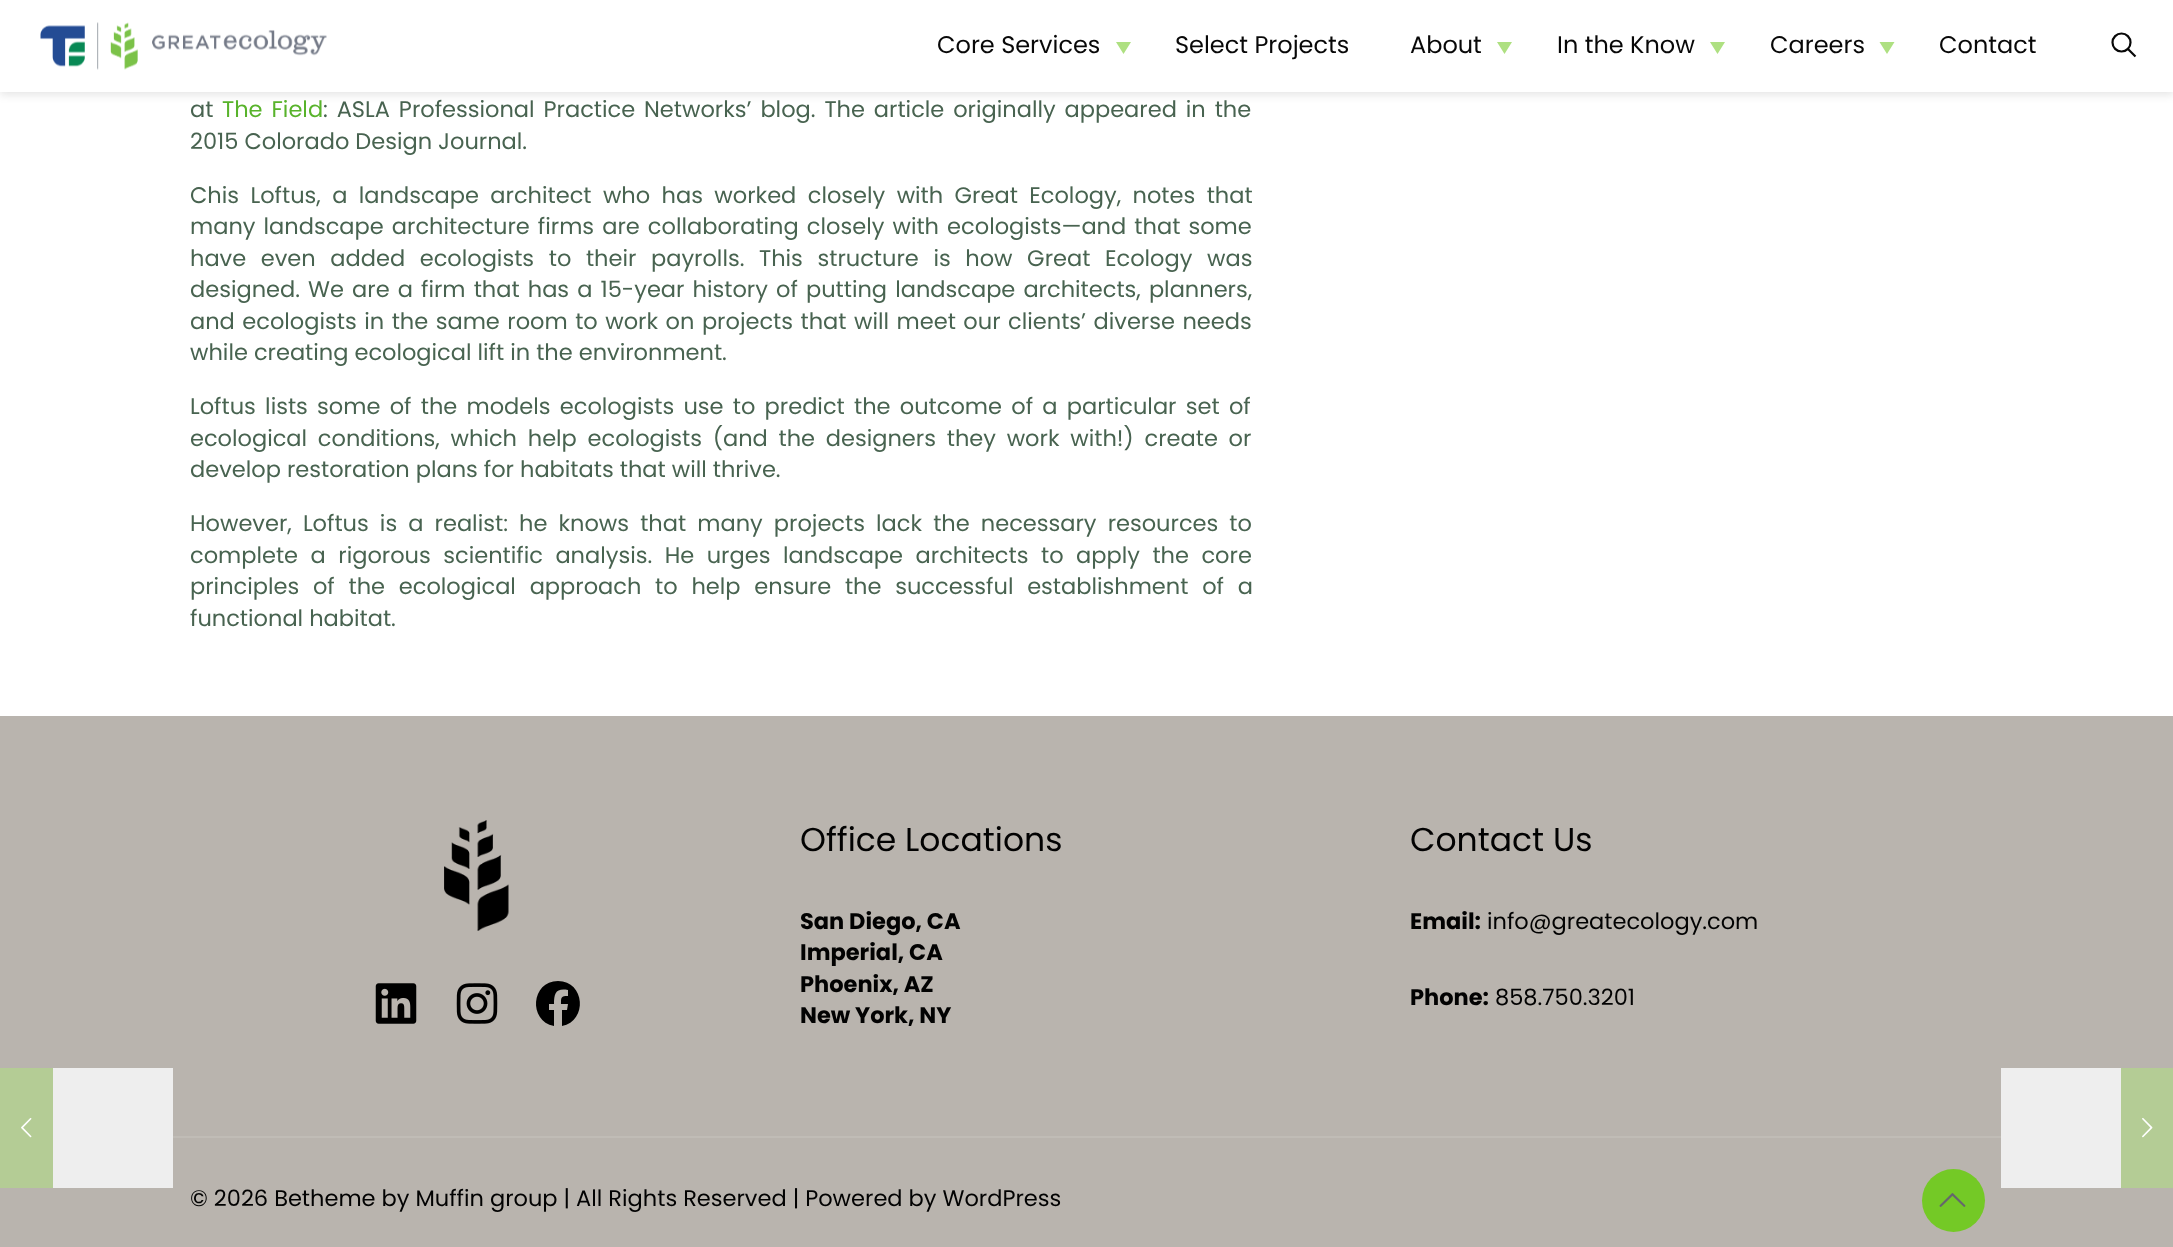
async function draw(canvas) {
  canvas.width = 2173;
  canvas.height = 1247;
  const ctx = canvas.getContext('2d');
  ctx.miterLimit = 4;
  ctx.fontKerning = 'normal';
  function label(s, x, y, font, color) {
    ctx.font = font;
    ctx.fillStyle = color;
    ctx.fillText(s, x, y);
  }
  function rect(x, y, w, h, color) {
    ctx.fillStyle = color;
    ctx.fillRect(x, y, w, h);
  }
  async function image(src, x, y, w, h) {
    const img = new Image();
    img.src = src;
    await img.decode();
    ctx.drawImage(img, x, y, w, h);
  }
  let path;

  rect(0, 0, 2173, 1247, '#fff');
  rect(0, 716, 2173, 531, '#b9b4ae');
  rect(0, 1068, 53, 120, '#b4cc95');
  await image('assets/img1.png', 21, 1118, 11, 20);
  rect(53, 1068, 120, 120, '#eee');
  ctx.save();
  path = new Path2D('M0 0H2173V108H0ZM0 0H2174V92H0Z');
  ctx.clip(path, 'evenodd');
  ctx.fillStyle = '#0000001a';
  ctx.filter = 'blur(4px)';
  ctx.beginPath();
  ctx.rect(0, 3, 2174, 92);
  ctx.fill();
  ctx.filter = 'none';
  ctx.restore();
  rect(0, 91, 2173, 1, '#fffffff7');
  await image('assets/img2.png', 40, 22, 287, 48);
  label('Core Services', 937, 53, '24px Poppins', '#080808');
  ctx.fillStyle = '#aee081';
  path = new Path2D('M1116 42H1131L1123.5 54Z');
  ctx.fill(path);
  label('Select Projects', 1175, 53, '24px Poppins', '#080808');
  label('About', 1410, 53, '24px Poppins', '#080808');
  ctx.fillStyle = '#aee081';
  path = new Path2D('M1497 42H1512L1504.5 54Z');
  ctx.fill(path);
  label('In the Know', 1557, 53, '24px Poppins', '#080808');
  ctx.fillStyle = '#aee081';
  path = new Path2D('M1710 42H1725L1717.5 54Z');
  ctx.fill(path);
  label('Careers', 1770, 53, '24px Poppins', '#080808');
  ctx.fillStyle = '#aee081';
  path = new Path2D('M1879.5 42H1894.5L1887 54Z');
  ctx.fill(path);
  label('Contact', 1939, 53, '24px Poppins', '#080808');
  ctx.beginPath();
  ctx.arc(2121.5, 42.5, 9, 0, 2 * Math.PI);
  ctx.strokeStyle = '#080808';
  ctx.lineWidth = 2.2;
  ctx.stroke();
  path = new Path2D('M2128 49L2135.5 56.5');
  ctx.stroke(path);
  label('at', 190, 117, '22.5px Poppins', '#486350');
  ctx.wordSpacing = '3px';
  label('The Field', 222, 117, '22.5px Poppins', '#58b32b');
  ctx.wordSpacing = '2.9px';
  label(': ASLA Professional Practice Networks’ blog. The article originally appeared in the', 323, 117, '22.5px Poppins', '#486350');
  ctx.wordSpacing = '0px';
  label('2015 Colorado Design Journal.', 190, 149, '22.5px Poppins', '#486350');
  ctx.wordSpacing = '5.4px';
  label('Chis Loftus, a landscape architect who has worked closely with Great Ecology, notes that', 190, 203, '22.5px Poppins', '#486350');
  ctx.wordSpacing = '2.1px';
  label('many landscape architecture firms are collaborating closely with ecologists—and that some', 190, 234, '22.5px Poppins', '#486350');
  ctx.wordSpacing = '8.6px';
  label('have even added ecologists to their payrolls. This structure is how Great Ecology was', 190, 266, '22.5px Poppins', '#486350');
  ctx.wordSpacing = '2.1px';
  label('designed. We are a firm that has a 15-year history of putting landscape architects, planners,', 190, 297, '22.5px Poppins', '#486350');
  ctx.wordSpacing = '1.5px';
  label('and ecologists in the same room to work on projects that will meet our clients’ diverse needs', 190, 329, '22.5px Poppins', '#486350');
  ctx.wordSpacing = '0px';
  label('while creating ecological lift in the environment.', 190, 360, '22.5px Poppins', '#486350');
  ctx.wordSpacing = '3.25px';
  label('Loftus lists some of the models ecologists use to predict the outcome of a particular set of', 190, 414, '22.5px Poppins', '#486350');
  ctx.wordSpacing = '4.75px';
  label('ecological conditions, which help ecologists (and the designers they work with!) create or', 190, 446, '22.5px Poppins', '#486350');
  ctx.wordSpacing = '0px';
  label('develop restoration plans for habitats that will thrive.', 190, 477, '22.5px Poppins', '#486350');
  ctx.wordSpacing = '5.1px';
  label('However, Loftus is a realist: he knows that many projects lack the necessary resources to', 190, 531, '22.5px Poppins', '#486350');
  ctx.wordSpacing = '6.5px';
  label('complete a rigorous scientific analysis. He urges landscape architects to apply the core', 190, 563, '22.5px Poppins', '#486350');
  ctx.wordSpacing = '7.75px';
  label('principles of the ecological approach to help ensure the successful establishment of a', 190, 594, '22.5px Poppins', '#486350');
  ctx.wordSpacing = '0px';
  label('functional habitat.', 190, 626, '22.5px Poppins', '#486350');
  await image('assets/img3.png', 444, 820, 65, 111);
  await image('assets/img4.png', 375, 983, 42, 41);
  await image('assets/img5.png', 456, 983, 42, 41);
  ctx.fillStyle = '#000';
  path = new Path2D('M558 981C531 981 528 1021 554 1026V1010H549V1004H554C554 993 556 988 568 990V996C561 996 561 997 561 1004H568L567 1010H562V1026C588 1021 585 981 558 981Z');
  ctx.fill(path);
  label('Office Locations', 800, 851, '33px Poppins', '#020202');
  label('San Diego, CA', 800, 929, 'bold 22.5px Poppins', '#020202');
  label('Imperial, CA', 800, 960, 'bold 22.5px Poppins', '#020202');
  label('Phoenix, AZ', 800, 992, 'bold 22.5px Poppins', '#020202');
  label('New York, NY', 800, 1023, 'bold 22.5px Poppins', '#020202');
  label('Contact Us', 1410, 851, '33px Poppins', '#020202');
  label('Email:', 1410, 929, 'bold 22.5px Poppins', '#020202');
  label('info@greatecology.com', 1487, 929, '22.5px Poppins', '#020202');
  label('Phone:', 1410, 1005, 'bold 22.5px Poppins', '#020202');
  label('858.750.3201', 1495, 1005, '22.5px Poppins', '#020202');
  rect(173, 1136, 1828, 2, '#c0bcb6');
  label('© 2026 Betheme by Muffin group | All Rights Reserved | Powered by WordPress', 190, 1206, '22.5px Poppins', '#020202');
  ctx.fillStyle = '#74c926';
  ctx.beginPath();
  ctx.arc(1953.5, 1200.5, 31.5, 0, 2 * Math.PI);
  ctx.fill();
  await image('assets/img6.png', 1939, 1193, 27, 14);
  rect(2001, 1068, 120, 120, '#eee');
  rect(2121, 1068, 52, 120, '#b4cc95');
  await image('assets/img7.png', 2142, 1118, 11, 20);
}

draw(document.querySelector('canvas'));
